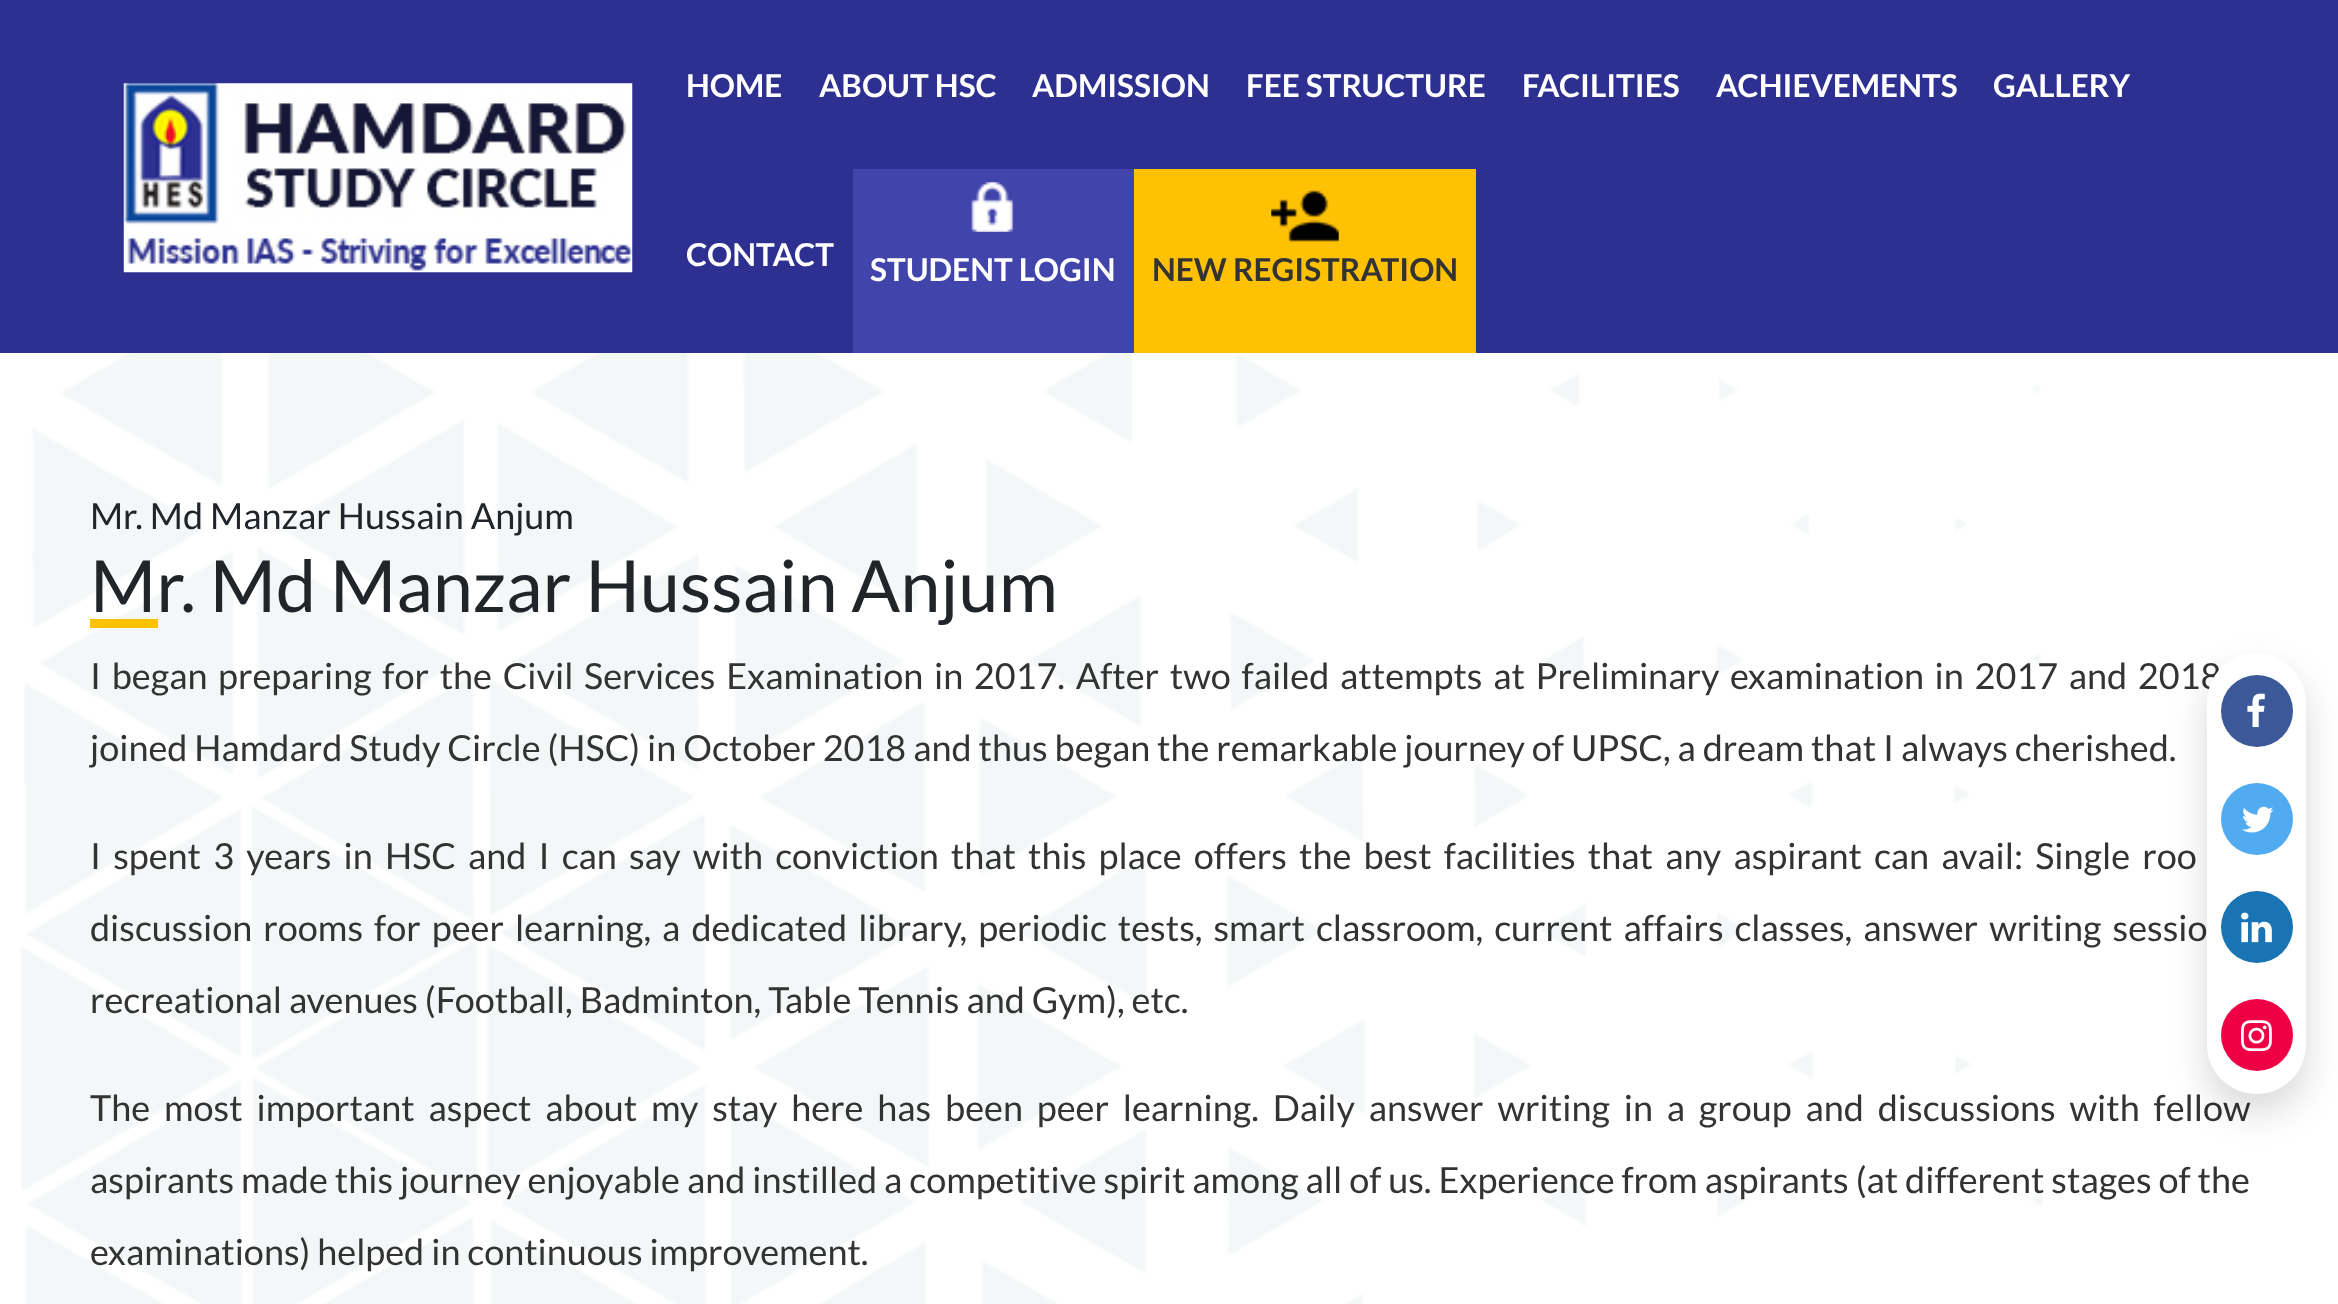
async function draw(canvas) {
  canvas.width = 2338;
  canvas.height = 1304;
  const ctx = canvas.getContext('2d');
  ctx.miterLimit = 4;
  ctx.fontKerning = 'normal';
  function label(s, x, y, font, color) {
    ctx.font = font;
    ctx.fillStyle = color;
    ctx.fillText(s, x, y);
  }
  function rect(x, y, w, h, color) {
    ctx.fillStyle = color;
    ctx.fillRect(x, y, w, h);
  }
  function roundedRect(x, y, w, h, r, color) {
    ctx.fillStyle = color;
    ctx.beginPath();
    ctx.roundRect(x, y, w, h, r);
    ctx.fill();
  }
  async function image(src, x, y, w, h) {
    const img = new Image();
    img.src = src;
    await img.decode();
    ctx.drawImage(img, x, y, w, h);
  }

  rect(0, 0, 2338, 1304, '#fff');
  await image('assets/img1.png', 20, 353, 2023, 951);
  rect(0, 0, 2338, 353, '#2d3091');
  await image('assets/img2.png', 123, 83, 510, 190);
  label('HOME', 686, 97, 'bold 31.5px Lato', '#fff');
  label('ABOUT HSC', 819, 97, 'bold 31.5px Lato', '#fff');
  label('ADMISSION', 1032, 97, 'bold 31.5px Lato', '#fff');
  label('FEE STRUCTURE', 1246, 97, 'bold 31.5px Lato', '#fff');
  label('FACILITIES', 1522, 97, 'bold 31.5px Lato', '#fff');
  label('ACHIEVEMENTS', 1716, 97, 'bold 31.5px Lato', '#fff');
  label('GALLERY', 1993, 97, 'bold 31.5px Lato', '#fff');
  label('CONTACT', 686, 266, 'bold 31.5px Lato', '#fff');
  rect(853, 169, 281, 184, '#4144ab');
  await image('assets/img3.png', 971, 182, 43, 50);
  label('STUDENT LOGIN', 870, 281, 'bold 31.5px Lato', '#fff');
  rect(1134, 169, 342, 184, '#fec104');
  await image('assets/img4.png', 1271, 190, 68, 52);
  label('NEW REGISTRATION', 1152, 281, 'bold 31.5px Lato', '#333');
  label('Mr. Md Manzar Hussain Anjum', 90, 529, '36px Lato', '#212529');
  label('Mr. Md Manzar Hussain Anjum', 90, 612, '72px Lato', '#212529');
  rect(90, 619, 68, 9, '#fec104');
  ctx.wordSpacing = '3.75px';
  label('I began preparing for the Civil Services Examination in 2017. After two failed attempts at Preliminary examination in 2017 and 2018', 90, 689, '36px Lato', '#333');
  ctx.wordSpacing = '0px';
  label('joined Hamdard Study Circle (HSC) in October 2018 and thus began the remarkable journey of UPSC, a dream that I always cherished.', 90, 761, '36px Lato', '#333');
  ctx.wordSpacing = '5.2px';
  label('I spent 3 years in HSC and I can say with conviction that this place offers the best facilities that any aspirant can avail: Single roo', 90, 869, '36px Lato', '#333');
  ctx.wordSpacing = '4.1px';
  label('discussion rooms for peer learning, a dedicated library, periodic tests, smart classroom, current affairs classes, answer writing sessio', 90, 941, '36px Lato', '#333');
  ctx.wordSpacing = '0px';
  label('recreational avenues (Football, Badminton, Table Tennis and Gym), etc.', 90, 1013, '36px Lato', '#333');
  ctx.wordSpacing = '6.9px';
  label('The most important aspect about my stay here has been peer learning. Daily answer writing in a group and discussions with fellow', 90, 1121, '36px Lato', '#333');
  ctx.wordSpacing = '0px';
  label('aspirants made this journey enjoyable and instilled a competitive spirit among all of us. Experience from aspirants (at different stages of the', 90, 1193, '36px Lato', '#333');
  label('examinations) helped in continuous improvement.', 90, 1265, '36px Lato', '#333');
  ctx.fillStyle = '#00000026';
  ctx.filter = 'blur(18px)';
  ctx.beginPath();
  ctx.roundRect(2207, 671, 99, 441, 49.5);
  ctx.fill();
  ctx.filter = 'none';
  roundedRect(2207, 653, 99, 441, 49.5, '#fff');
  ctx.fillStyle = '#3b5998';
  ctx.beginPath();
  ctx.arc(2257, 711, 36, 0, 2 * Math.PI);
  ctx.fill();
  await image('assets/img5.png', 2247, 693, 18, 35);
  ctx.fillStyle = '#50abf1';
  ctx.beginPath();
  ctx.arc(2257, 819, 36, 0, 2 * Math.PI);
  ctx.fill();
  await image('assets/img6.png', 2242, 806, 32, 27);
  ctx.fillStyle = '#1974b3';
  ctx.beginPath();
  ctx.arc(2257, 927, 36, 0, 2 * Math.PI);
  ctx.fill();
  await image('assets/img7.png', 2241, 912, 31, 31);
  ctx.fillStyle = '#ef0045';
  ctx.beginPath();
  ctx.arc(2257, 1035, 36, 0, 2 * Math.PI);
  ctx.fill();
  await image('assets/img8.png', 2241, 1020, 31, 32);
}

draw(document.querySelector('canvas'));
